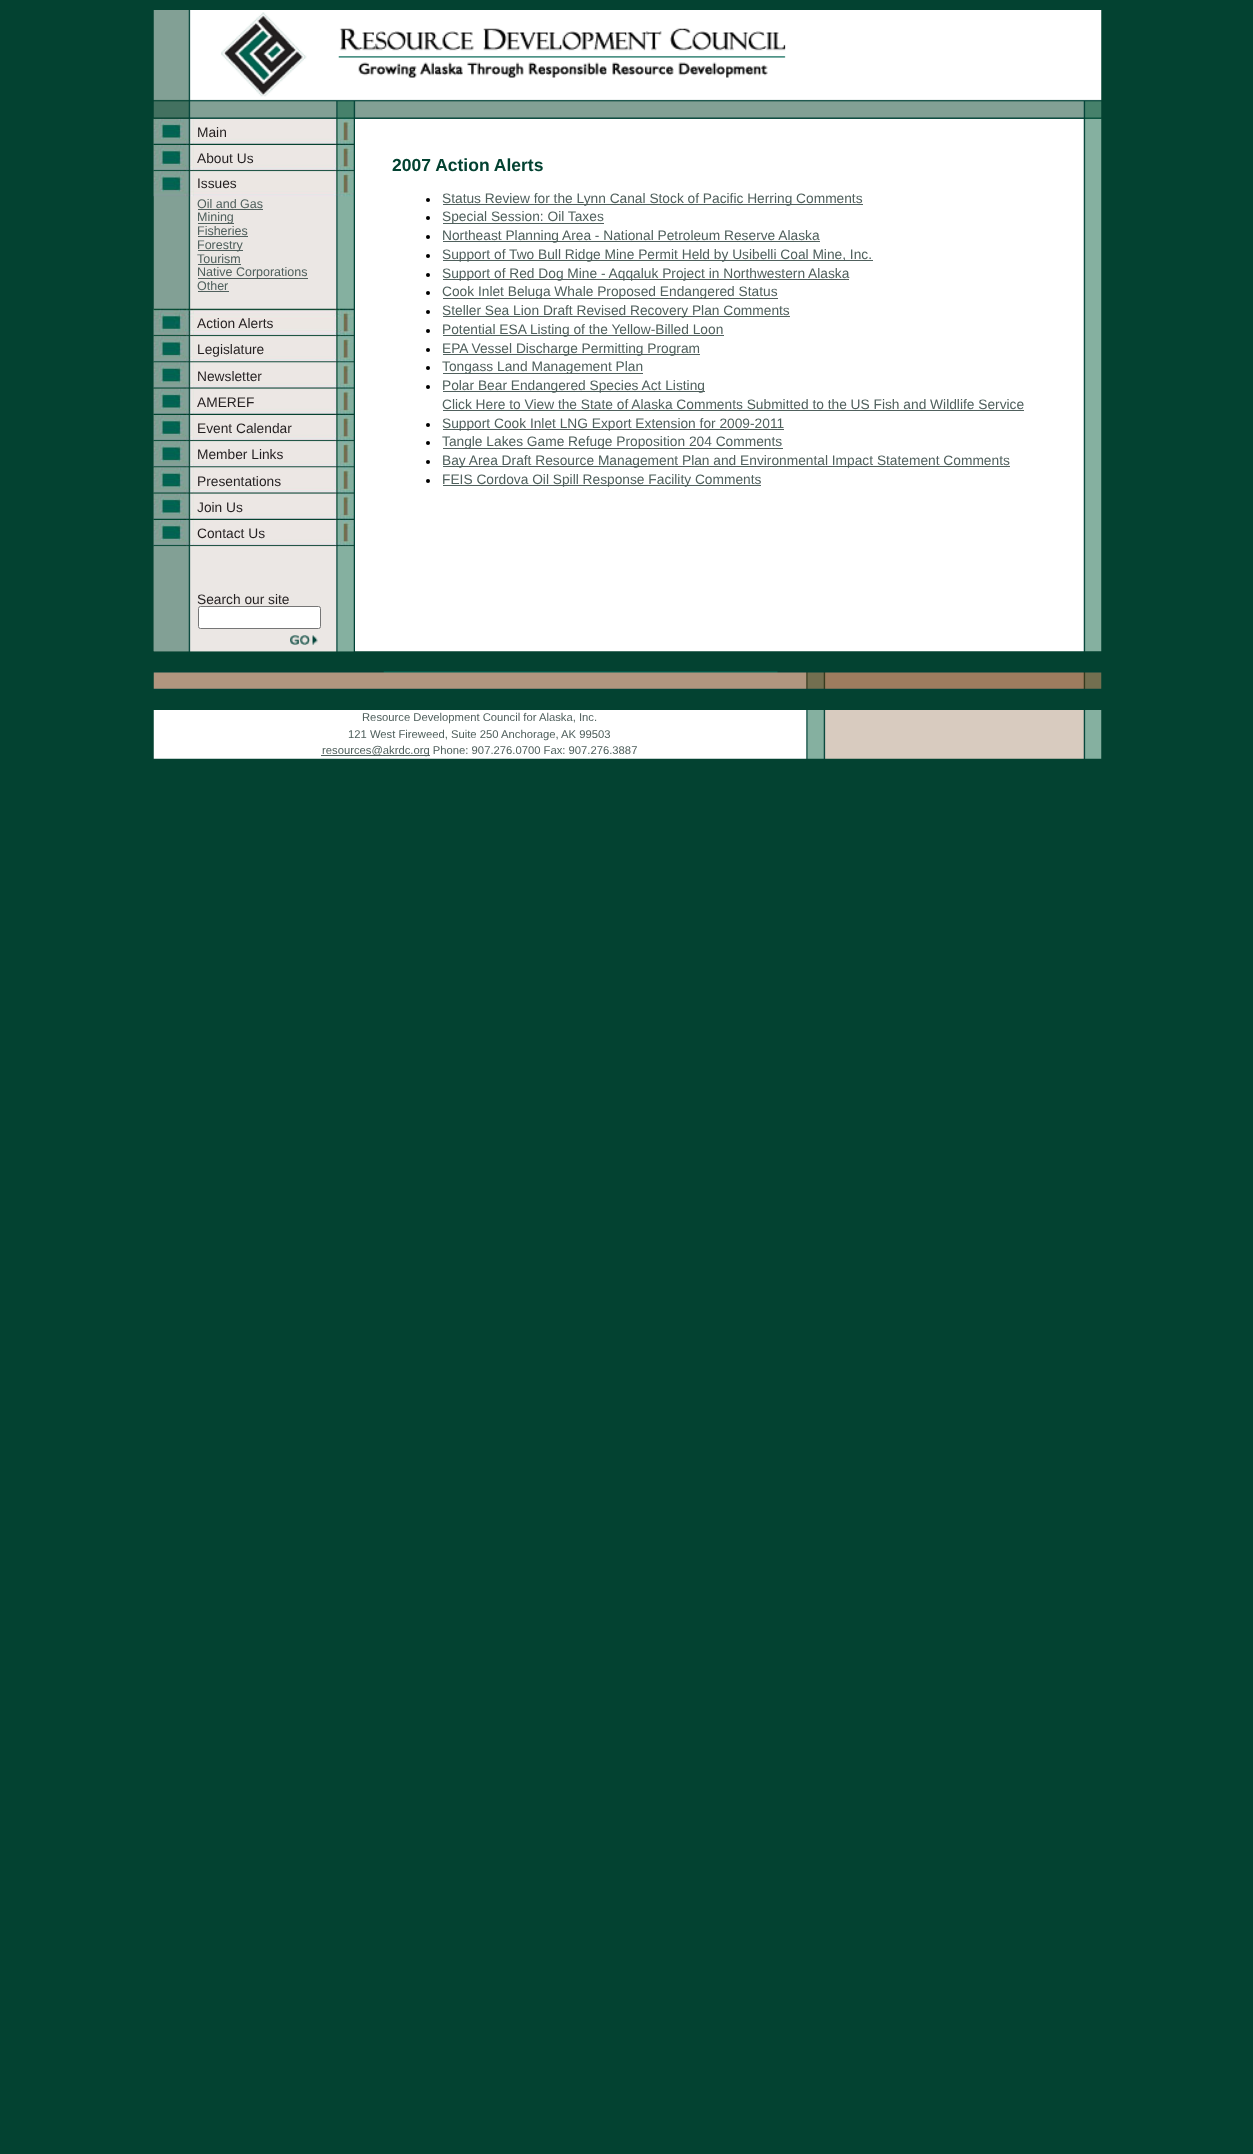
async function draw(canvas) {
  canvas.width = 1253;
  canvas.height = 2154;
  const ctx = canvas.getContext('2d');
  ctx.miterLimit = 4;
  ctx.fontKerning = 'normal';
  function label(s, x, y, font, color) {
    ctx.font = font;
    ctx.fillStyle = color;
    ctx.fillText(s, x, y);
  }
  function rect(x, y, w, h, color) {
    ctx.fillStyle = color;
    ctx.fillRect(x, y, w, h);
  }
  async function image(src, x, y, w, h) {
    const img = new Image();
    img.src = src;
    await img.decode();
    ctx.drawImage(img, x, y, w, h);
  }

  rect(0, 0, 1253, 2154, '#034231');
  await image('assets/img2.png', 153, 118, 202, 534);
  await image('assets/img3.png', 153, 118, 201, 27);
  await image('assets/img13.png', 355, 118, 747, 534);
  await image('assets/img1.png', 153, 10, 949, 109);
  label('Main', 197, 137, '13.75px Liberation Sans', '#231f20');
  await image('assets/img4.png', 153, 145, 201, 27);
  label('About Us', 197, 163, '13.75px Liberation Sans', '#231f20');
  await image('assets/img5.png', 153, 171, 201, 26);
  label('Issues', 197, 188, '13.75px Liberation Sans', '#231f20');
  label('Oil and Gas', 197, 208, '12.5px Liberation Sans', '#50605d');
  rect(198, 209, 65, 1, '#50605d');
  rect(198, 223, 36, 1, '#50605d');
  label('Mining', 197, 221, '12.5px Liberation Sans', '#50605d');
  label('Fisheries', 197, 235, '12.5px Liberation Sans', '#50605d');
  rect(198, 236, 50, 1, '#50605d');
  rect(198, 250, 45, 1, '#50605d');
  label('Forestry', 197, 249, '12.5px Liberation Sans', '#50605d');
  label('Tourism', 197, 263, '12.5px Liberation Sans', '#50605d');
  rect(198, 264, 43, 1, '#50605d');
  rect(198, 278, 110, 1, '#50605d');
  label('Native Corporations', 197, 276, '12.5px Liberation Sans', '#50605d');
  label('Other', 197, 290, '12.5px Liberation Sans', '#50605d');
  rect(198, 291, 31, 1, '#50605d');
  await image('assets/img6.png', 153, 308, 201, 29);
  label('Action Alerts', 197, 328, '13.75px Liberation Sans', '#231f20');
  await image('assets/img7.png', 153, 336, 201, 27);
  label('Legislature', 197, 354, '13.75px Liberation Sans', '#231f20');
  await image('assets/img8.png', 153, 362, 201, 27);
  label('Newsletter', 197, 381, '13.75px Liberation Sans', '#231f20');
  await image('assets/img9.png', 153, 388, 201, 27);
  label('AMEREF', 197, 407, '13.75px Liberation Sans', '#231f20');
  await image('assets/img4.png', 153, 415, 201, 27);
  label('Event Calendar', 197, 433, '13.75px Liberation Sans', '#231f20');
  await image('assets/img10.png', 153, 441, 201, 27);
  label('Member Links', 197, 459, '13.75px Liberation Sans', '#231f20');
  await image('assets/img8.png', 153, 467, 201, 27);
  label('Presentations', 197, 486, '13.75px Liberation Sans', '#231f20');
  await image('assets/img9.png', 153, 493, 201, 27);
  label('Join Us', 197, 512, '13.75px Liberation Sans', '#231f20');
  await image('assets/img4.png', 153, 520, 201, 27);
  label('Contact Us', 197, 538, '13.75px Liberation Sans', '#231f20');
  await image('assets/img11.png', 153, 546, 201, 106);
  label('Search our site', 197, 604, '13.75px Liberation Sans', '#231f20');
  ctx.fillStyle = '#fff';
  ctx.beginPath();
  ctx.roundRect(198.5, 606.5, 122, 22, 2);
  ctx.fill();
  ctx.strokeStyle = '#767676';
  ctx.stroke();
  await image('assets/img12.png', 290, 635, 28, 10);
  label('2007 Action Alerts', 392, 171, 'bold 17.5px Liberation Sans', '#034231');
  ctx.fillStyle = '#000';
  ctx.beginPath();
  ctx.arc(428, 200, 2, 0, 2 * Math.PI);
  ctx.fill();
  rect(443, 204, 420, 1, '#50605d');
  label('Status Review for the Lynn Canal Stock of Pacific Herring Comments', 442, 203, '13.75px Liberation Sans', '#50605d');
  ctx.fillStyle = '#000';
  ctx.beginPath();
  ctx.arc(428, 218, 2, 0, 2 * Math.PI);
  ctx.fill();
  rect(443, 223, 161, 1, '#50605d');
  label('Special Session: Oil Taxes', 442, 221, '13.75px Liberation Sans', '#50605d');
  ctx.fillStyle = '#000';
  ctx.beginPath();
  ctx.arc(428, 237, 2, 0, 2 * Math.PI);
  ctx.fill();
  rect(443, 241, 377, 1, '#50605d');
  label('Northeast Planning Area - National Petroleum Reserve Alaska', 442, 240, '13.75px Liberation Sans', '#50605d');
  ctx.fillStyle = '#000';
  ctx.beginPath();
  ctx.arc(428, 256, 2, 0, 2 * Math.PI);
  ctx.fill();
  rect(443, 260, 430, 1, '#50605d');
  label('Support of Two Bull Ridge Mine Permit Held by Usibelli Coal Mine, Inc.', 442, 259, '13.75px Liberation Sans', '#50605d');
  ctx.fillStyle = '#000';
  ctx.beginPath();
  ctx.arc(428, 275, 2, 0, 2 * Math.PI);
  ctx.fill();
  rect(443, 279, 406, 1, '#50605d');
  label('Support of Red Dog Mine - Aqqaluk Project in Northwestern Alaska', 442, 278, '13.75px Liberation Sans', '#50605d');
  ctx.fillStyle = '#000';
  ctx.beginPath();
  ctx.arc(428, 293, 2, 0, 2 * Math.PI);
  ctx.fill();
  rect(443, 298, 335, 1, '#50605d');
  label('Cook Inlet Beluga Whale Proposed Endangered Status', 442, 296, '13.75px Liberation Sans', '#50605d');
  ctx.fillStyle = '#000';
  ctx.beginPath();
  ctx.arc(428, 312, 2, 0, 2 * Math.PI);
  ctx.fill();
  rect(443, 316, 347, 1, '#50605d');
  label('Steller Sea Lion Draft Revised Recovery Plan Comments', 442, 315, '13.75px Liberation Sans', '#50605d');
  ctx.fillStyle = '#000';
  ctx.beginPath();
  ctx.arc(428, 331, 2, 0, 2 * Math.PI);
  ctx.fill();
  rect(443, 335, 281, 1, '#50605d');
  label('Potential ESA Listing of the Yellow-Billed Loon', 442, 334, '13.75px Liberation Sans', '#50605d');
  ctx.fillStyle = '#000';
  ctx.beginPath();
  ctx.arc(428, 350, 2, 0, 2 * Math.PI);
  ctx.fill();
  rect(443, 354, 257, 1, '#50605d');
  label('EPA Vessel Discharge Permitting Program', 442, 353, '13.75px Liberation Sans', '#50605d');
  ctx.fillStyle = '#000';
  ctx.beginPath();
  ctx.arc(428, 368, 2, 0, 2 * Math.PI);
  ctx.fill();
  rect(443, 373, 200, 1, '#50605d');
  label('Tongass Land Management Plan', 442, 371, '13.75px Liberation Sans', '#50605d');
  ctx.fillStyle = '#000';
  ctx.beginPath();
  ctx.arc(428, 387, 2, 0, 2 * Math.PI);
  ctx.fill();
  rect(443, 391, 262, 1, '#50605d');
  label('Polar Bear Endangered Species Act Listing', 442, 390, '13.75px Liberation Sans', '#50605d');
  label('Click Here to View the State of Alaska Comments Submitted to the US Fish and Wildlife Service', 442, 409, '13.75px Liberation Sans', '#50605d');
  rect(443, 410, 581, 1, '#50605d');
  ctx.fillStyle = '#000';
  ctx.beginPath();
  ctx.arc(428, 425, 2, 0, 2 * Math.PI);
  ctx.fill();
  rect(443, 429, 341, 1, '#50605d');
  label('Support Cook Inlet LNG Export Extension for 2009-2011', 442, 428, '13.75px Liberation Sans', '#50605d');
  ctx.fillStyle = '#000';
  ctx.beginPath();
  ctx.arc(428, 443, 2, 0, 2 * Math.PI);
  ctx.fill();
  rect(443, 448, 340, 1, '#50605d');
  label('Tangle Lakes Game Refuge Proposition 204 Comments', 442, 446, '13.75px Liberation Sans', '#50605d');
  ctx.fillStyle = '#000';
  ctx.beginPath();
  ctx.arc(428, 462, 2, 0, 2 * Math.PI);
  ctx.fill();
  rect(443, 466, 567, 1, '#50605d');
  label('Bay Area Draft Resource Management Plan and Environmental Impact Statement Comments', 442, 465, '13.75px Liberation Sans', '#50605d');
  ctx.fillStyle = '#000';
  ctx.beginPath();
  ctx.arc(428, 481, 2, 0, 2 * Math.PI);
  ctx.fill();
  rect(443, 485, 318, 1, '#50605d');
  label('FEIS Cordova Oil Spill Response Facility Comments', 442, 484, '13.75px Liberation Sans', '#50605d');
  await image('assets/img14.png', 153, 671, 949, 19);
  await image('assets/img15.png', 153, 710, 949, 49);
  label('Resource Development Council for Alaska, Inc.', 362, 721, '11.25px Liberation Sans', '#50605d');
  label('121 West Fireweed, Suite 250 Anchorage, AK 99503', 348, 738, '11.25px Liberation Sans', '#50605d');
  rect(321, 755, 109, 1, '#50605d');
  label('resources@akrdc.org Phone: 907.276.0700 Fax: 907.276.3887', 322, 754, '11.25px Liberation Sans', '#50605d');
}

draw(document.querySelector('canvas'));
